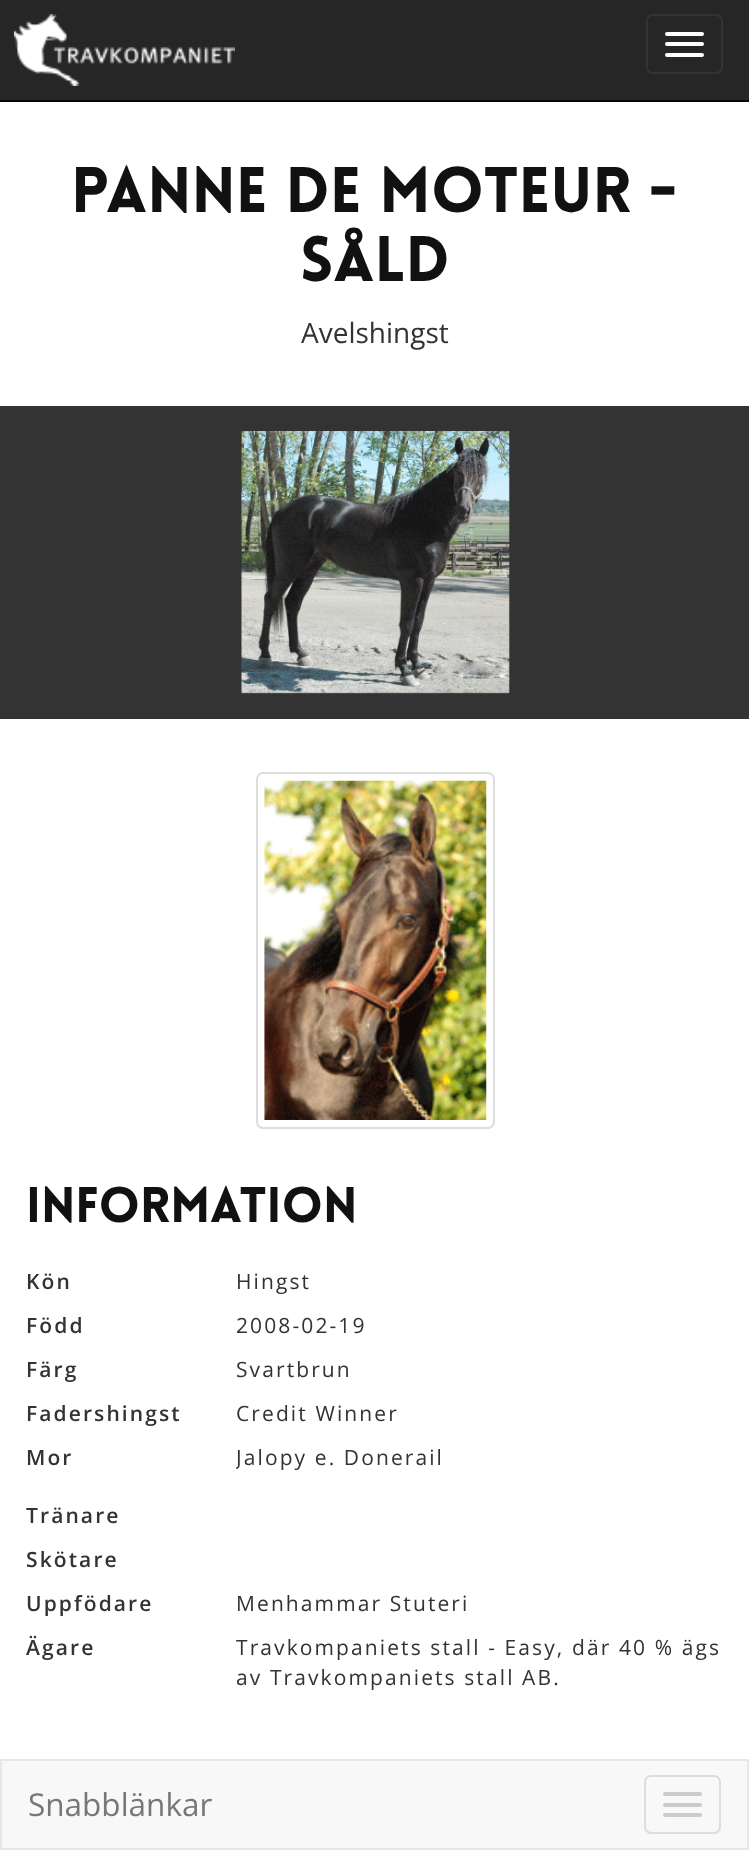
async function draw(canvas) {
  canvas.width = 749;
  canvas.height = 1850;
  const ctx = canvas.getContext('2d');
  ctx.miterLimit = 4;
  ctx.fontKerning = 'normal';
  function label(s, x, y, font, color) {
    ctx.font = font;
    ctx.fillStyle = color;
    ctx.fillText(s, x, y);
  }
  function rect(x, y, w, h, color) {
    ctx.fillStyle = color;
    ctx.fillRect(x, y, w, h);
  }
  function roundedRect(x, y, w, h, r, color) {
    ctx.fillStyle = color;
    ctx.beginPath();
    ctx.roundRect(x, y, w, h, r);
    ctx.fill();
  }
  async function image(src, x, y, w, h) {
    const img = new Image();
    img.src = src;
    await img.decode();
    ctx.drawImage(img, x, y, w, h);
  }

  rect(0, 0, 749, 1850, '#fff');
  rect(0, 0, 749, 100, '#262626');
  rect(0, 100, 749, 2, '#080808');
  await image('assets/img1.png', 14, 14, 221, 72);
  ctx.beginPath();
  ctx.roundRect(647, 15, 75, 58, 6);
  ctx.strokeStyle = '#333';
  ctx.lineWidth = 2;
  ctx.stroke();
  roundedRect(665, 32, 39, 4, 2, '#fff');
  roundedRect(665, 42, 39, 4, 2, '#fff');
  roundedRect(665, 53, 39, 4, 2, '#fff');
  label('Panne De Moteur -', 71, 212, '900 63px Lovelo', '#111');
  label('SÅLD', 300, 281, '900 63px Lovelo', '#111');
  label('Avelshingst', 301, 343, '28px Open Sans', '#333');
  rect(0, 406, 749, 313, '#333');
  await image('assets/img2.png', 241, 431, 269, 263);
  ctx.beginPath();
  ctx.roundRect(257, 773, 237, 355, 6);
  ctx.strokeStyle = '#ddd';
  ctx.stroke();
  await image('assets/img3.png', 264, 780, 223, 340);
  label('Information', 26, 1222, '900 49px Lovelo', '#111');
  ctx.letterSpacing = '2.1px';
  label('Kön', 26, 1289, '600 21px Open Sans', '#333');
  label('Hingst', 236, 1289, '21px Open Sans', '#333');
  label('Född', 26, 1333, '600 21px Open Sans', '#333');
  label('2008-02-19', 236, 1333, '21px Open Sans', '#333');
  label('Färg', 26, 1377, '600 21px Open Sans', '#333');
  label('Svartbrun', 236, 1377, '21px Open Sans', '#333');
  label('Fadershingst', 26, 1421, '600 21px Open Sans', '#333');
  label('Credit Winner', 236, 1421, '21px Open Sans', '#333');
  label('Mor', 26, 1465, '600 21px Open Sans', '#333');
  ctx.save();
  ctx.beginPath();
  ctx.rect(236, 1442, 487, 30);
  ctx.clip();
  label('Jalopy e. Donerail', 236, 1465, '21px Open Sans', '#333');
  ctx.restore();
  label('Tränare', 26, 1523, '600 21px Open Sans', '#333');
  label('Skötare', 26, 1567, '600 21px Open Sans', '#333');
  label('Uppfödare', 26, 1611, '600 21px Open Sans', '#333');
  label('Menhammar Stuteri', 236, 1611, '21px Open Sans', '#333');
  label('Ägare', 26, 1655, '600 21px Open Sans', '#333');
  label('Travkompaniets stall - Easy, där 40 % ägs', 236, 1655, '21px Open Sans', '#333');
  label('av Travkompaniets stall AB.', 236, 1685, '21px Open Sans', '#333');
  ctx.fillStyle = '#f8f8f8';
  ctx.beginPath();
  ctx.rect(1, 1760, 747, 89);
  ctx.fill();
  ctx.strokeStyle = '#e7e7e7';
  ctx.stroke();
  ctx.letterSpacing = '0px';
  label('Snabblänkar', 28, 1816, '31.5px Open Sans', '#777');
  ctx.beginPath();
  ctx.roundRect(645, 1776, 75, 57, 6);
  ctx.strokeStyle = '#ddd';
  ctx.stroke();
  roundedRect(663, 1792, 39, 4, 2, '#ccc');
  roundedRect(663, 1803, 39, 4, 2, '#ccc');
  roundedRect(663, 1813, 39, 4, 2, '#ccc');
}

draw(document.querySelector('canvas'));
